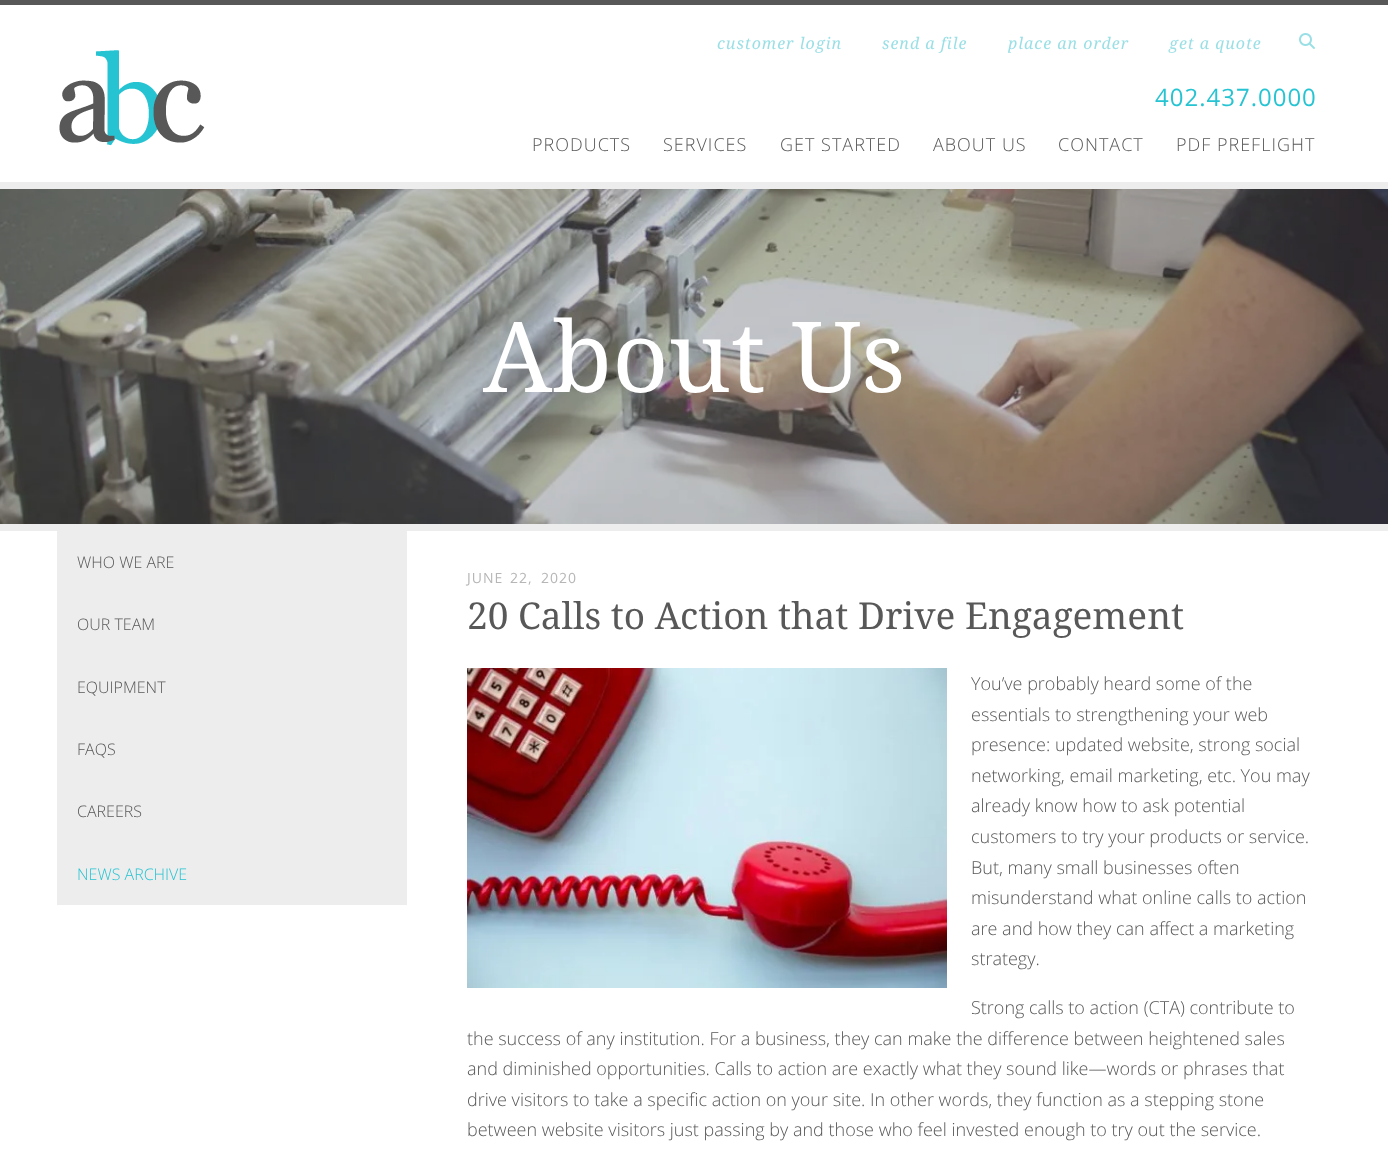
async function draw(canvas) {
  canvas.width = 1388;
  canvas.height = 1149;
  const ctx = canvas.getContext('2d');
  ctx.miterLimit = 4;
  ctx.fontKerning = 'normal';
  function label(s, x, y, font, color) {
    ctx.font = font;
    ctx.fillStyle = color;
    ctx.fillText(s, x, y);
  }
  function rect(x, y, w, h, color) {
    ctx.fillStyle = color;
    ctx.fillRect(x, y, w, h);
  }
  async function image(src, x, y, w, h) {
    const img = new Image();
    img.src = src;
    await img.decode();
    ctx.drawImage(img, x, y, w, h);
  }

  rect(0, 0, 1388, 1149, '#585858');
  rect(0, 5, 1388, 177, '#fff');
  await image('assets/img1.png', 59, 50, 146, 96);
  ctx.letterSpacing = '1px';
  label('customer login', 717, 49, 'italic 16px Noto Serif', '#99dfe5');
  label('send a file', 882, 49, 'italic 16px Noto Serif', '#99dfe5');
  label('place an order', 1008, 49, 'italic 16px Noto Serif', '#99dfe5');
  label('get a quote', 1169, 49, 'italic 16px Noto Serif', '#99dfe5');
  await image('assets/img2.png', 1299, 33, 16, 16);
  label('402.437.0000', 1155, 106, '24px Open Sans', '#26c4d2');
  label('PRODUCTS', 532, 151, '300 18px Open Sans', '#585858');
  label('SERVICES', 663, 151, '300 18px Open Sans', '#585858');
  label('GET STARTED', 780, 151, '300 18px Open Sans', '#585858');
  label('ABOUT US', 933, 151, '300 18px Open Sans', '#585858');
  label('CONTACT', 1058, 151, '300 18px Open Sans', '#585858');
  label('PDF PREFLIGHT', 1176, 151, '300 18px Open Sans', '#585858');
  await image('assets/img3.png', 0, 189, 1388, 335);
  rect(0, 182, 1388, 7, '#ededed');
  rect(0, 524, 1388, 7, '#ededed');
  ctx.letterSpacing = '0px';
  label('About Us', 483, 392, '98px Noto Serif', '#fff');
  rect(0, 531, 1388, 618, '#fff');
  rect(57, 531, 350, 374, '#ededed');
  label('WHO WE ARE', 77, 568, '300 16px Open Sans', '#585858');
  label('OUR TEAM', 77, 630, '300 16px Open Sans', '#585858');
  label('EQUIPMENT', 77, 693, '300 16px Open Sans', '#585858');
  label('FAQS', 77, 755, '300 16px Open Sans', '#585858');
  label('CAREERS', 77, 817, '300 16px Open Sans', '#585858');
  label('NEWS ARCHIVE', 77, 880, '300 16px Open Sans', '#26c4d2');
  ctx.letterSpacing = '1px';
  label('JUNE', 467, 583, '14px Open Sans', '#b6b6b6');
  label('22,', 510, 583, '14px Open Sans', '#b6b6b6');
  label('2020', 541, 583, '14px Open Sans', '#b6b6b6');
  ctx.letterSpacing = '0px';
  label('20 Calls to Action that Drive Engagement', 467, 629, '37px Noto Serif', '#585858');
  await image('assets/img4.png', 467, 668, 480, 320);
  label('You’ve probably heard some of the', 971, 690, '300 18px Open Sans', '#585858');
  label('essentials to strengthening your web', 971, 721, '300 18px Open Sans', '#585858');
  label('presence: updated website, strong social', 971, 751, '300 18px Open Sans', '#585858');
  label('networking, email marketing, etc. You may', 971, 782, '300 18px Open Sans', '#585858');
  label('already know how to ask potential', 971, 812, '300 18px Open Sans', '#585858');
  label('customers to try your products or service.', 971, 843, '300 18px Open Sans', '#585858');
  label('But, many small businesses often', 971, 874, '300 18px Open Sans', '#585858');
  label('misunderstand what online calls to action', 971, 904, '300 18px Open Sans', '#585858');
  label('are and how they can affect a marketing', 971, 935, '300 18px Open Sans', '#585858');
  label('strategy.', 971, 965, '300 18px Open Sans', '#585858');
  label('Strong calls to action (CTA) contribute to', 971, 1014, '300 18px Open Sans', '#585858');
  label('the success of any institution. For a business, they can make the difference between heightened sales', 467, 1045, '300 18px Open Sans', '#585858');
  label('and diminished opportunities. Calls to action are exactly what they sound like—words or phrases that', 467, 1075, '300 18px Open Sans', '#585858');
  label('drive visitors to take a specific action on your site. In other words, they function as a stepping stone', 467, 1106, '300 18px Open Sans', '#585858');
  label('between website visitors just passing by and those who feel invested enough to try out the service.', 467, 1136, '300 18px Open Sans', '#585858');
}

draw(document.querySelector('canvas'));
